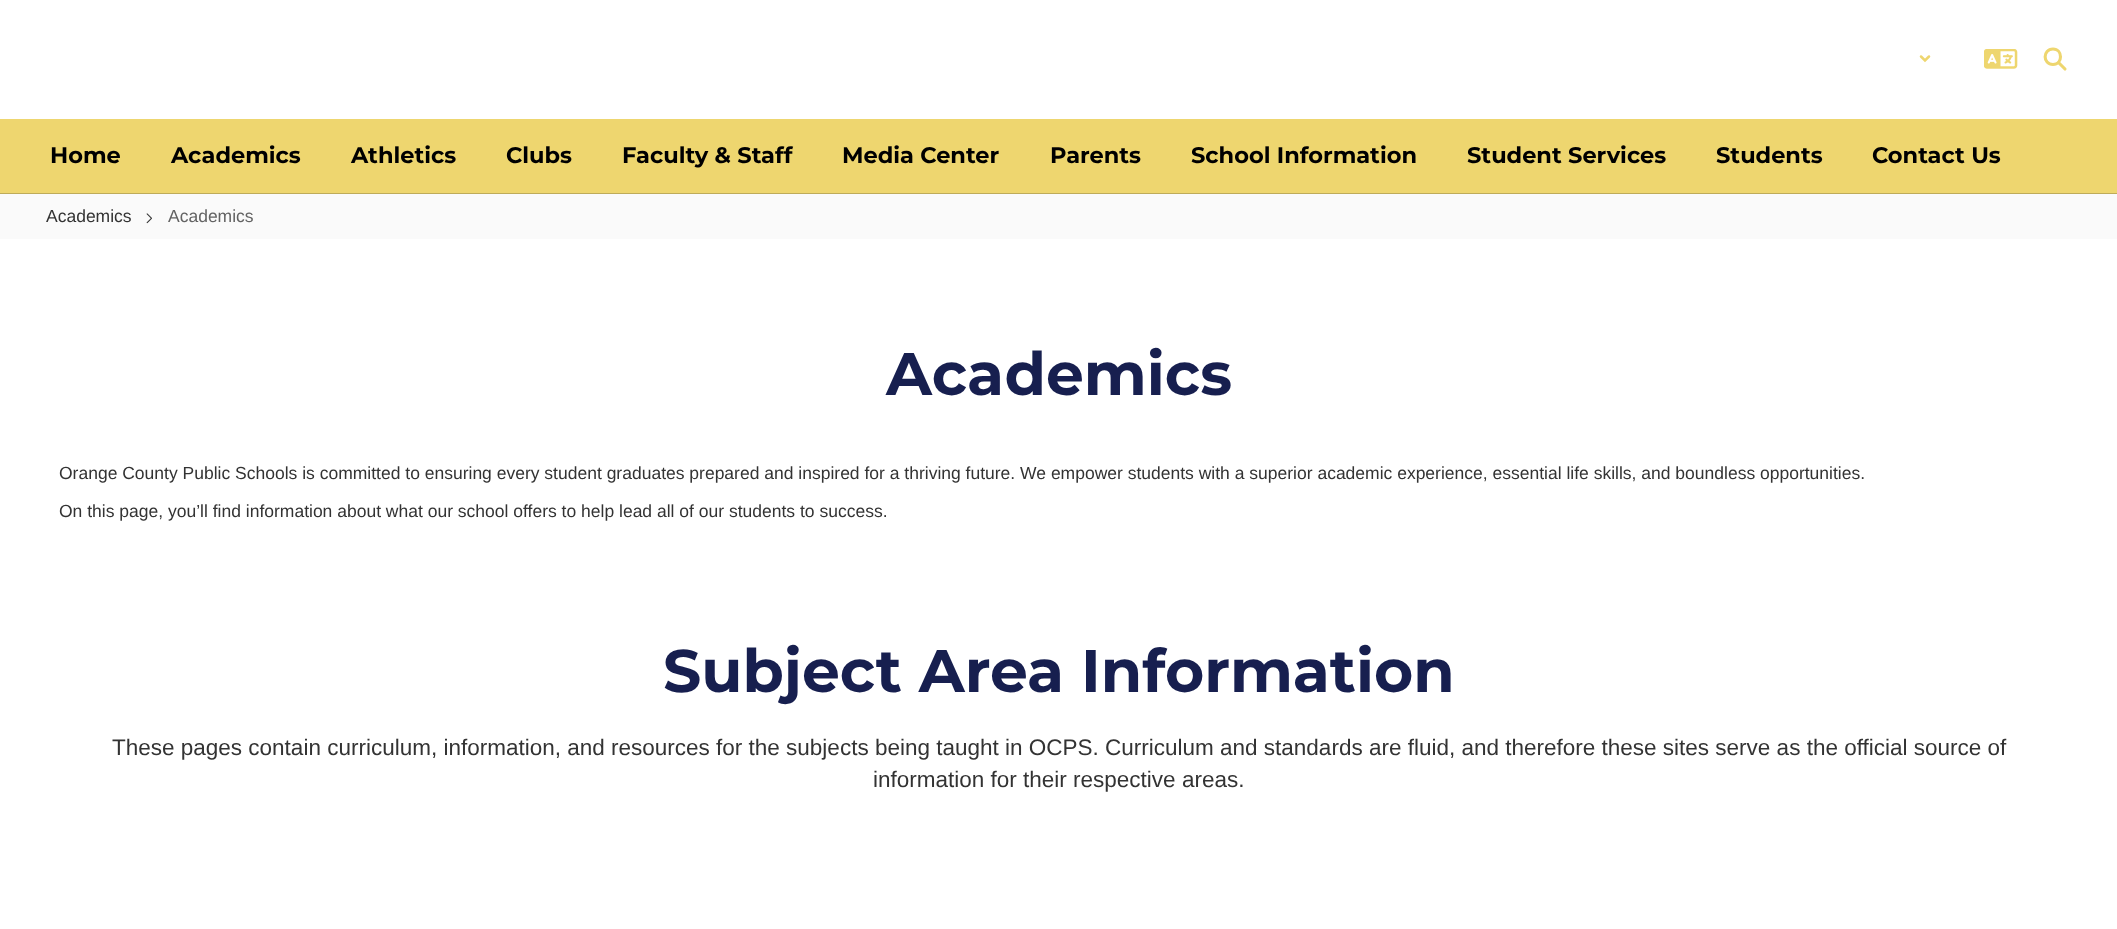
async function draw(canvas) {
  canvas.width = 2117;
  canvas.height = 929;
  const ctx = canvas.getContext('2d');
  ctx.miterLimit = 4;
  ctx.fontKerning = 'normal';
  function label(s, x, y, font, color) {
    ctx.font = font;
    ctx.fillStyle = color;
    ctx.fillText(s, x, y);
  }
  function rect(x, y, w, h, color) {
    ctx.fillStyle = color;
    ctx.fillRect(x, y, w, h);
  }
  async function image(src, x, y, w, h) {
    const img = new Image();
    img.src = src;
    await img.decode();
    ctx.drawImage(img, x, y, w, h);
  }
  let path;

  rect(0, 0, 2117, 929, '#fff');
  path = new Path2D('M1921 56.5L1925 60.5L1929 56.5');
  ctx.strokeStyle = '#eed66f';
  ctx.lineWidth = 2.5;
  ctx.lineCap = 'round';
  ctx.stroke(path);
  await image('assets/img1.png', 1984, 49, 34, 20);
  path = new Path2D('M2053 64.5C2063 64.5 2063 49 2053 49C2042.5 49 2042.5 64.5 2053 64.5Z');
  ctx.lineWidth = 3.1;
  ctx.lineCap = 'square';
  ctx.lineJoin = 'round';
  ctx.stroke(path);
  path = new Path2D('M2065 69L2058.5 62.5');
  ctx.lineCap = 'round';
  ctx.stroke(path);
  rect(0, 119, 2117, 74, '#eed66f');
  label('Home', 50, 163, 'bold 22.5px Montserrat', '#000');
  label('Academics', 171, 163, 'bold 22.5px Montserrat', '#000');
  label('Athletics', 351, 163, 'bold 22.5px Montserrat', '#000');
  label('Clubs', 506, 163, 'bold 22.5px Montserrat', '#000');
  label('Faculty & Staff', 622, 163, 'bold 22.5px Montserrat', '#000');
  label('Media Center', 842, 163, 'bold 22.5px Montserrat', '#000');
  label('Parents', 1050, 163, 'bold 22.5px Montserrat', '#000');
  label('School Information', 1191, 163, 'bold 22.5px Montserrat', '#000');
  label('Student Services', 1467, 163, 'bold 22.5px Montserrat', '#000');
  label('Students', 1716, 163, 'bold 22.5px Montserrat', '#000');
  label('Contact Us', 1872, 163, 'bold 22.5px Montserrat', '#000');
  rect(0, 193, 2117, 1, '#beab59');
  rect(0, 194, 2117, 45, '#fafafa');
  label('Academics', 46, 222, '17.5px Liberation Sans', '#333');
  await image('assets/img2.png', 146, 213, 6, 11);
  label('Academics', 168, 222, '17.5px Liberation Sans', '#636363');
  label('Academics', 886, 395, 'bold 60px Montserrat', '#171f4f');
  label('Orange County Public Schools is committed to ensuring every student graduates prepared and inspired for a thriving future. We empower students with a superior academic experience, essential life skills, and boundless opportunities.', 59, 479, '17.5px Liberation Sans', '#333');
  label('On this page, you’ll find information about what our school offers to help lead all of our students to success.', 59, 517, '17.5px Liberation Sans', '#333');
  label('Subject Area Information', 663, 692, 'bold 60px Montserrat', '#171f4f');
  label('These pages contain curriculum, information, and resources for the subjects being taught in OCPS. Curriculum and standards are fluid, and therefore these sites serve as the official source of', 112, 755, '22.5px Liberation Sans', '#333');
  label('information for their respective areas.', 873, 787, '22.5px Liberation Sans', '#333');
}

draw(document.querySelector('canvas'));
